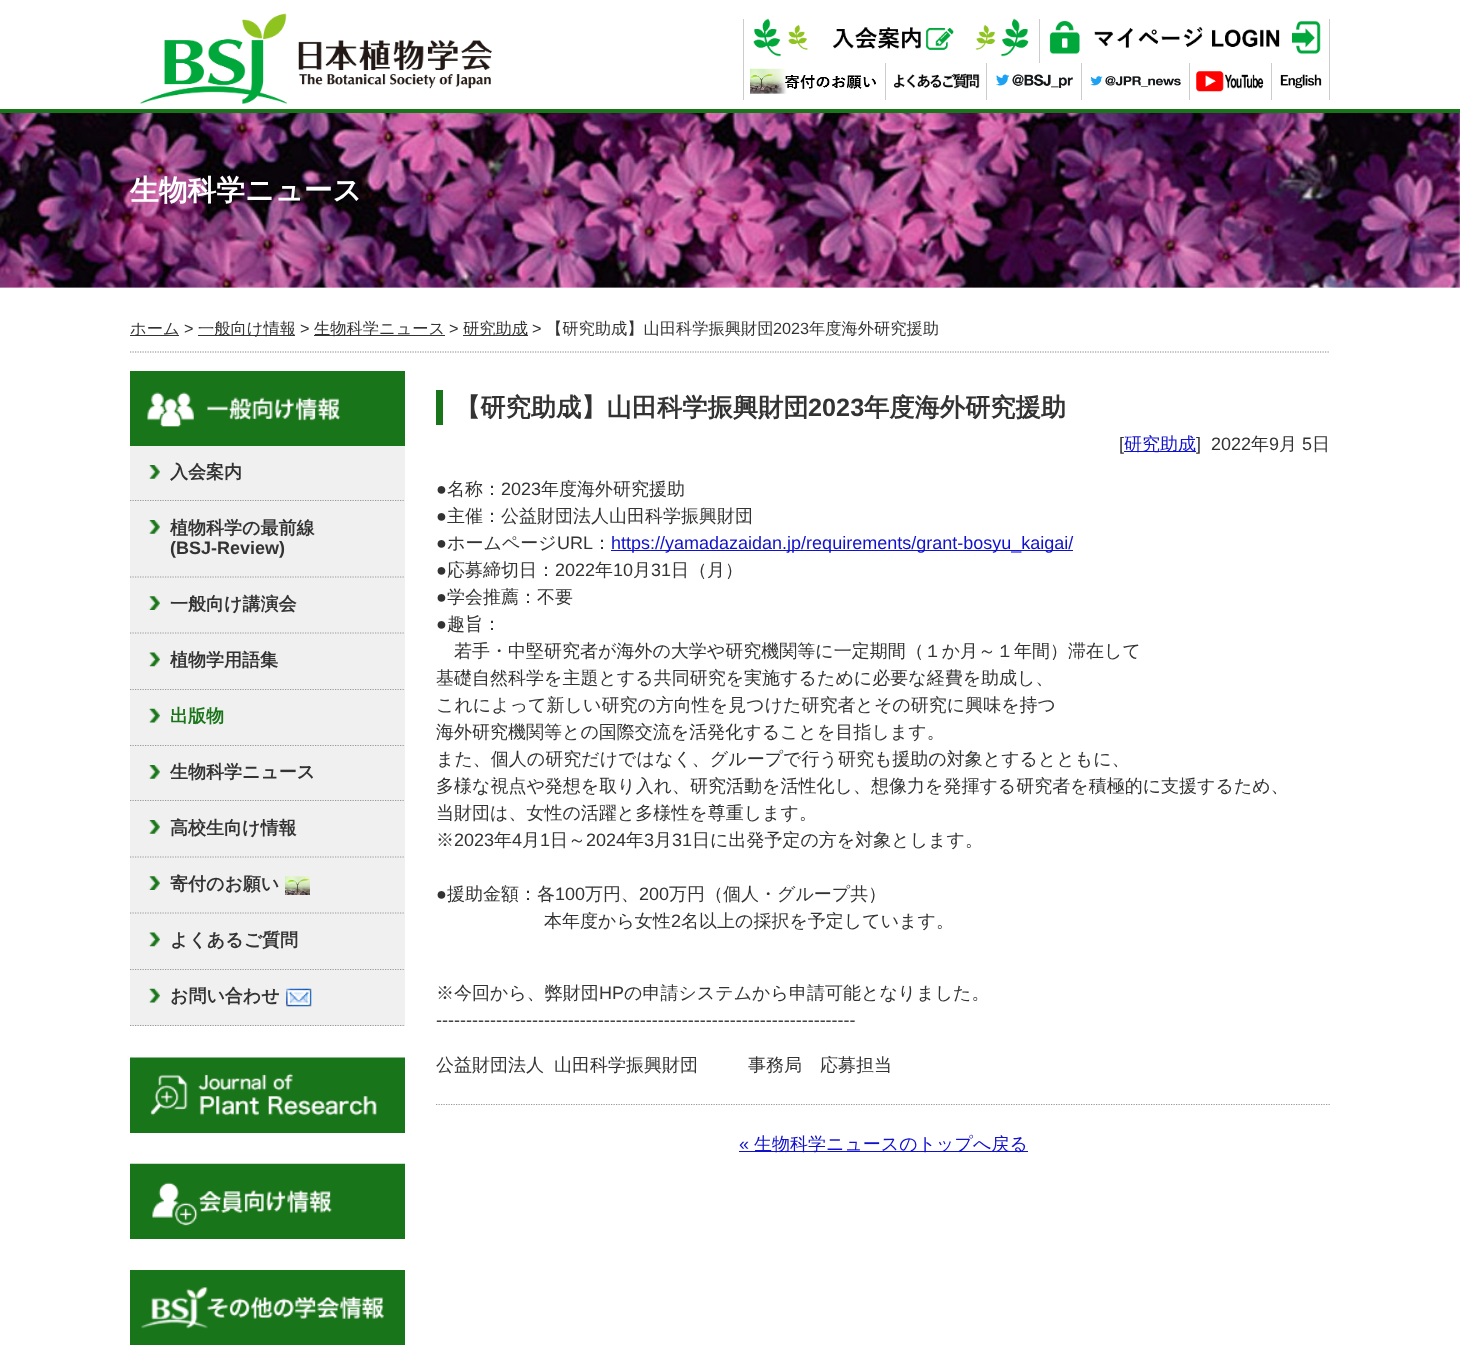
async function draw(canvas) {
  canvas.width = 1460;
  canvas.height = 1349;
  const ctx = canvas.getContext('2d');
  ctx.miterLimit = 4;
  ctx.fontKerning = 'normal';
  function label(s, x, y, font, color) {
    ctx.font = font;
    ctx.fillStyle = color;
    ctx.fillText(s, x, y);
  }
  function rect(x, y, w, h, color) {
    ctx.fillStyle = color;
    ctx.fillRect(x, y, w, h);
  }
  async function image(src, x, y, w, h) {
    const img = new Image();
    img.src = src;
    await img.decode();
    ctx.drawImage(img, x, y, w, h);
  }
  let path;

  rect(0, 0, 1460, 1349, '#fff');
  await image('assets/img1.png', 0, 113, 1460, 175);
  rect(0, 109, 1460, 4, '#197519');
  await image('assets/img2.png', 140, 13, 352, 91);
  rect(1329, 19, 1, 81, '#ccc');
  rect(743, 19, 1, 81, '#ccc');
  await image('assets/img3.png', 753, 18, 276, 39);
  rect(1039, 19, 1, 44, '#ccc');
  await image('assets/img4.png', 1049, 20, 272, 34);
  await image('assets/img5.png', 750, 68, 126, 26);
  rect(885, 63, 1, 37, '#ccc');
  await image('assets/img6.png', 893, 73, 87, 16);
  rect(986, 63, 1, 37, '#ccc');
  await image('assets/img7.png', 996, 74, 77, 14);
  rect(1081, 63, 1, 37, '#ccc');
  await image('assets/img8.png', 1090, 76, 91, 11);
  rect(1189, 63, 1, 37, '#ccc');
  await image('assets/img9.png', 1196, 71, 68, 21);
  rect(1271, 63, 1, 37, '#ccc');
  await image('assets/img10.png', 1280, 74, 42, 15);
  label('生物科学ニュース', 130, 200, 'bold 28.75px WenQuanYi Zen Hei', '#fff');
  rect(0, 287, 1460, 1, '#ffffff61');
  path = new Path2D('M130 352H1330');
  ctx.strokeStyle = '#888';
  ctx.lineWidth = 1.2;
  ctx.setLineDash([1.25, 1.25]);
  ctx.stroke(path);
  rect(130, 335, 49, 1, '#333');
  label('ホーム', 130, 334, '500 16.25px WenQuanYi Zen Hei', '#333');
  label('>', 184, 334, '16.25px Liberation Sans', '#333');
  rect(198, 335, 97, 1, '#333');
  label('一般向け情報', 198, 334, '500 16.25px WenQuanYi Zen Hei', '#333');
  label('>', 300, 334, '16.25px Liberation Sans', '#333');
  rect(314, 335, 131, 1, '#333');
  label('生物科学ニュース', 314, 334, '500 16.25px WenQuanYi Zen Hei', '#333');
  label('>', 449, 334, '16.25px Liberation Sans', '#333');
  rect(463, 335, 65, 1, '#333');
  label('研究助成', 463, 334, '500 16.25px WenQuanYi Zen Hei', '#333');
  label('>', 532, 334, '16.25px Liberation Sans', '#333');
  label('【研究助成】山田科学振興財団', 546, 334, '500 16.25px WenQuanYi Zen Hei', '#333');
  label('2023', 773, 334, '16.25px Liberation Sans', '#333');
  label('年度海外研究援助', 809, 334, '500 16.25px WenQuanYi Zen Hei', '#333');
  rect(130, 371, 275, 21, '#197519');
  await image('assets/img11.png', 130, 392, 275, 54);
  rect(130, 446, 275, 580, '#f0f0f0');
  path = new Path2D('M130 500.5H405');
  ctx.strokeStyle = '#999';
  ctx.stroke(path);
  await image('assets/img12.png', 148, 465, 12, 14);
  label('入会案内', 170, 478, 'bold 18px WenQuanYi Zen Hei', '#333');
  path = new Path2D('M130 577H405');
  ctx.stroke(path);
  await image('assets/img12.png', 148, 520, 12, 14);
  label('植物科学の最前線', 170, 534, 'bold 18px WenQuanYi Zen Hei', '#333');
  label('(BSJ-Review)', 170, 554, 'bold 18px Liberation Sans', '#333');
  path = new Path2D('M130 633H405');
  ctx.stroke(path);
  await image('assets/img13.png', 148, 596, 12, 14);
  label('一般向け講演会', 170, 610, 'bold 18px WenQuanYi Zen Hei', '#333');
  path = new Path2D('M130 689.5H405');
  ctx.stroke(path);
  await image('assets/img14.png', 148, 652, 12, 15);
  label('植物学用語集', 170, 666, 'bold 18px WenQuanYi Zen Hei', '#333');
  path = new Path2D('M130 745.5H405');
  ctx.stroke(path);
  await image('assets/img15.png', 148, 708, 12, 15);
  label('出版物', 170, 722, 'bold 18px WenQuanYi Zen Hei', '#197519');
  path = new Path2D('M130 800.5H405');
  ctx.stroke(path);
  await image('assets/img12.png', 148, 765, 12, 14);
  label('生物科学ニュース', 170, 778, 'bold 18px WenQuanYi Zen Hei', '#333');
  path = new Path2D('M130 857H405');
  ctx.stroke(path);
  await image('assets/img12.png', 148, 820, 12, 14);
  label('高校生向け情報', 170, 834, 'bold 18px WenQuanYi Zen Hei', '#333');
  path = new Path2D('M130 913H405');
  ctx.stroke(path);
  await image('assets/img13.png', 148, 876, 12, 14);
  label('寄付のお願い', 170, 890, 'bold 18px WenQuanYi Zen Hei', '#333');
  await image('assets/img16.png', 285, 876, 25, 19);
  path = new Path2D('M130 969.5H405');
  ctx.stroke(path);
  await image('assets/img14.png', 148, 932, 12, 15);
  label('よくあるご質問', 170, 946, 'bold 18px WenQuanYi Zen Hei', '#333');
  path = new Path2D('M130 1025.5H405');
  ctx.stroke(path);
  await image('assets/img15.png', 148, 988, 12, 15);
  label('お問い合わせ', 170, 1002, 'bold 18px WenQuanYi Zen Hei', '#333');
  await image('assets/img17.png', 286, 988, 26, 19);
  rect(130, 1116, 275, 17, '#197519');
  await image('assets/img18.png', 130, 1057, 275, 59);
  rect(130, 1226, 275, 13, '#197519');
  await image('assets/img19.png', 130, 1163, 275, 63);
  rect(130, 1270, 275, 75, '#197519');
  await image('assets/img20.png', 141, 1287, 243, 42);
  rect(436, 390, 7, 35, '#197519');
  label('【研究助成】山田科学振興財団', 455, 416, 'bold 25.25px WenQuanYi Zen Hei', '#333');
  label('2023', 808, 416, 'bold 25.25px Liberation Sans', '#333');
  label('年度海外研究援助', 864, 416, 'bold 25.25px WenQuanYi Zen Hei', '#333');
  label('[', 1119, 450, '18px Liberation Sans', '#333');
  rect(1124, 451, 72, 1, '#11c');
  label('研究助成', 1124, 450, '500 18px WenQuanYi Zen Hei', '#11c');
  label(']  2022', 1196, 450, '18px Liberation Sans', '#333');
  label('年', 1251, 450, '500 18px WenQuanYi Zen Hei', '#333');
  label('9', 1269, 450, '18px Liberation Sans', '#333');
  label('月', 1279, 450, '500 18px WenQuanYi Zen Hei', '#333');
  label('5', 1302, 450, '18px Liberation Sans', '#333');
  label('日', 1312, 450, '500 18px WenQuanYi Zen Hei', '#333');
  label('●', 436, 495, '18px Liberation Sans', '#333');
  label('名称：', 447, 495, '500 18px WenQuanYi Zen Hei', '#333');
  label('2023', 501, 495, '18px Liberation Sans', '#333');
  label('年度海外研究援助', 541, 495, '500 18px WenQuanYi Zen Hei', '#333');
  label('●', 436, 522, '18px Liberation Sans', '#333');
  label('主催：公益財団法人山田科学振興財団', 447, 522, '500 18px WenQuanYi Zen Hei', '#333');
  label('●', 436, 549, '18px Liberation Sans', '#333');
  label('ホームページ', 447, 549, '500 18px WenQuanYi Zen Hei', '#333');
  label('URL', 557, 549, '18px Liberation Sans', '#333');
  label('：', 593, 549, '500 18px WenQuanYi Zen Hei', '#333');
  rect(611, 550, 462, 1, '#11c');
  label('https://yamadazaidan.jp/requirements/grant-bosyu_kaigai/', 611, 549, '18px Liberation Sans', '#11c');
  label('●', 436, 576, '18px Liberation Sans', '#333');
  label('応募締切日：', 447, 576, '500 18px WenQuanYi Zen Hei', '#333');
  label('2022', 555, 576, '18px Liberation Sans', '#333');
  label('年', 595, 576, '500 18px WenQuanYi Zen Hei', '#333');
  label('10', 613, 576, '18px Liberation Sans', '#333');
  label('月', 633, 576, '500 18px WenQuanYi Zen Hei', '#333');
  label('31', 651, 576, '18px Liberation Sans', '#333');
  label('日（月）', 671, 576, '500 18px WenQuanYi Zen Hei', '#333');
  label('●', 436, 603, '18px Liberation Sans', '#333');
  label('学会推薦：不要', 447, 603, '500 18px WenQuanYi Zen Hei', '#333');
  label('●', 436, 630, '18px Liberation Sans', '#333');
  label('趣旨：', 447, 630, '500 18px WenQuanYi Zen Hei', '#333');
  label('若手・中堅研究者が海外の大学や研究機関等に一定期間（１か月～１年間）滞在して', 454, 657, '500 18px WenQuanYi Zen Hei', '#333');
  label('基礎自然科学を主題とする共同研究を実施するために必要な経費を助成し、', 436, 684, '500 18px WenQuanYi Zen Hei', '#333');
  label('これによって新しい研究の方向性を見つけた研究者とその研究に興味を持つ', 436, 711, '500 18px WenQuanYi Zen Hei', '#333');
  label('海外研究機関等との国際交流を活発化することを目指します。', 436, 738, '500 18px WenQuanYi Zen Hei', '#333');
  label('また、個人の研究だけではなく、グループで行う研究も援助の対象とするとともに、', 436, 765, '500 18px WenQuanYi Zen Hei', '#333');
  label('多様な視点や発想を取り入れ、研究活動を活性化し、想像力を発揮する研究者を積極的に支援するため、', 436, 792, '500 18px WenQuanYi Zen Hei', '#333');
  label('当財団は、女性の活躍と多様性を尊重します。', 436, 819, '500 18px WenQuanYi Zen Hei', '#333');
  label('※', 436, 846, '500 18px WenQuanYi Zen Hei', '#333');
  label('2023', 454, 846, '18px Liberation Sans', '#333');
  label('年', 494, 846, '500 18px WenQuanYi Zen Hei', '#333');
  label('4', 512, 846, '18px Liberation Sans', '#333');
  label('月', 522, 846, '500 18px WenQuanYi Zen Hei', '#333');
  label('1', 540, 846, '18px Liberation Sans', '#333');
  label('日～', 550, 846, '500 18px WenQuanYi Zen Hei', '#333');
  label('2024', 586, 846, '18px Liberation Sans', '#333');
  label('年', 626, 846, '500 18px WenQuanYi Zen Hei', '#333');
  label('3', 644, 846, '18px Liberation Sans', '#333');
  label('月', 654, 846, '500 18px WenQuanYi Zen Hei', '#333');
  label('31', 672, 846, '18px Liberation Sans', '#333');
  label('日に出発予定の方を対象とします。', 692, 846, '500 18px WenQuanYi Zen Hei', '#333');
  label('●', 436, 900, '18px Liberation Sans', '#333');
  label('援助金額：各', 447, 900, '500 18px WenQuanYi Zen Hei', '#333');
  label('100', 555, 900, '18px Liberation Sans', '#333');
  label('万円、', 585, 900, '500 18px WenQuanYi Zen Hei', '#333');
  label('200', 639, 900, '18px Liberation Sans', '#333');
  label('万円（個人・グループ共）', 669, 900, '500 18px WenQuanYi Zen Hei', '#333');
  label('本年度から女性', 544, 927, '500 18px WenQuanYi Zen Hei', '#333');
  label('2', 671, 927, '18px Liberation Sans', '#333');
  label('名以上の採択を予定しています。', 681, 927, '500 18px WenQuanYi Zen Hei', '#333');
  label('※今回から、弊財団', 436, 999, '500 18px WenQuanYi Zen Hei', '#333');
  label('HP', 599, 999, '18px Liberation Sans', '#333');
  label('の申請システムから申請可能となりました。', 624, 999, '500 18px WenQuanYi Zen Hei', '#333');
  label('----------------------------------------------------------------------', 436, 1026, '18px Liberation Sans', '#333');
  label('公益財団法人', 436, 1071, '500 18px WenQuanYi Zen Hei', '#333');
  label('山田科学振興財団', 554, 1071, '500 18px WenQuanYi Zen Hei', '#333');
  label('事務局　応募担当', 748, 1071, '500 18px WenQuanYi Zen Hei', '#333');
  path = new Path2D('M436 1104.5H1330');
  ctx.stroke(path);
  label('«', 739, 1150, '18px Liberation Sans', '#11c');
  rect(739, 1151, 289, 1, '#11c');
  label('生物科学ニュースのトップへ戻る', 754, 1150, '500 18px WenQuanYi Zen Hei', '#11c');
}

draw(document.querySelector('canvas'));
